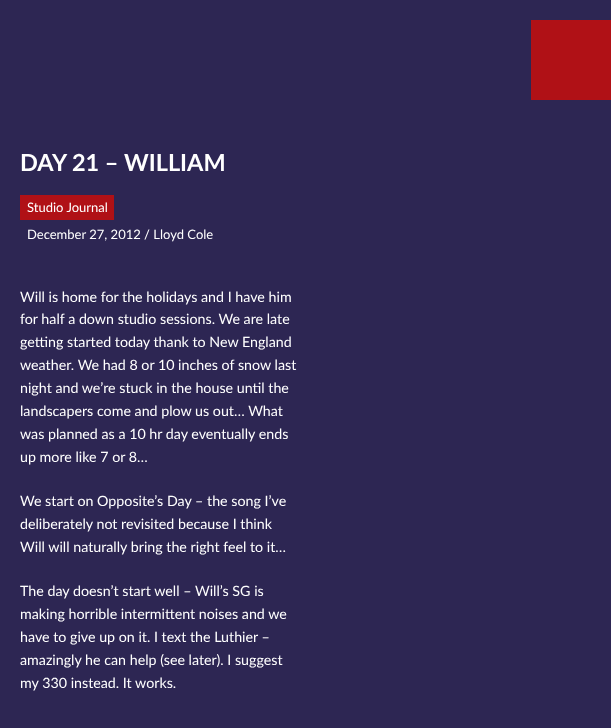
async function draw(canvas) {
  canvas.width = 611;
  canvas.height = 728;
  const ctx = canvas.getContext('2d');
  ctx.miterLimit = 4;
  ctx.fontKerning = 'normal';
  function label(s, x, y, font, color) {
    ctx.font = font;
    ctx.fillStyle = color;
    ctx.fillText(s, x, y);
  }
  function rect(x, y, w, h, color) {
    ctx.fillStyle = color;
    ctx.fillRect(x, y, w, h);
  }

  rect(0, 0, 611, 728, '#2d2653');
  rect(531, 20, 80, 80, '#b01116');
  label('DAY 21 – WILLIAM', 20, 171, 'bold 23.5px Lato', '#fff');
  rect(20, 195, 94, 25, '#b01116');
  label('Studio Journal', 27, 212, '13px Lato', '#fff');
  label('December 27, 2012 / Lloyd Cole', 27, 239, '13px Lato', '#fff');
  label('Will is home for the holidays and I have him', 20, 302, '14.25px Lato', '#fff');
  label('for half a down studio sessions. We are late', 20, 324, '14.25px Lato', '#fff');
  label('getting started today thank to New England', 20, 347, '14.25px Lato', '#fff');
  label('weather. We had 8 or 10 inches of snow last', 20, 370, '14.25px Lato', '#fff');
  label('night and we’re stuck in the house until the', 20, 393, '14.25px Lato', '#fff');
  label('landscapers come and plow us out… What', 20, 416, '14.25px Lato', '#fff');
  label('was planned as a 10 hr day eventually ends', 20, 439, '14.25px Lato', '#fff');
  label('up more like 7 or 8…', 20, 462, '14.25px Lato', '#fff');
  label('We start on Opposite’s Day – the song I’ve', 20, 506, '14.25px Lato', '#fff');
  label('deliberately not revisited because I think', 20, 529, '14.25px Lato', '#fff');
  label('Will will naturally bring the right feel to it…', 20, 552, '14.25px Lato', '#fff');
  label('The day doesn’t start well – Will’s SG is', 20, 596, '14.25px Lato', '#fff');
  label('making horrible intermittent noises and we', 20, 619, '14.25px Lato', '#fff');
  label('have to give up on it. I text the Luthier –', 20, 642, '14.25px Lato', '#fff');
  label('amazingly he can help (see later). I suggest', 20, 665, '14.25px Lato', '#fff');
  label('my 330 instead. It works.', 20, 688, '14.25px Lato', '#fff');
}

draw(document.querySelector('canvas'));
